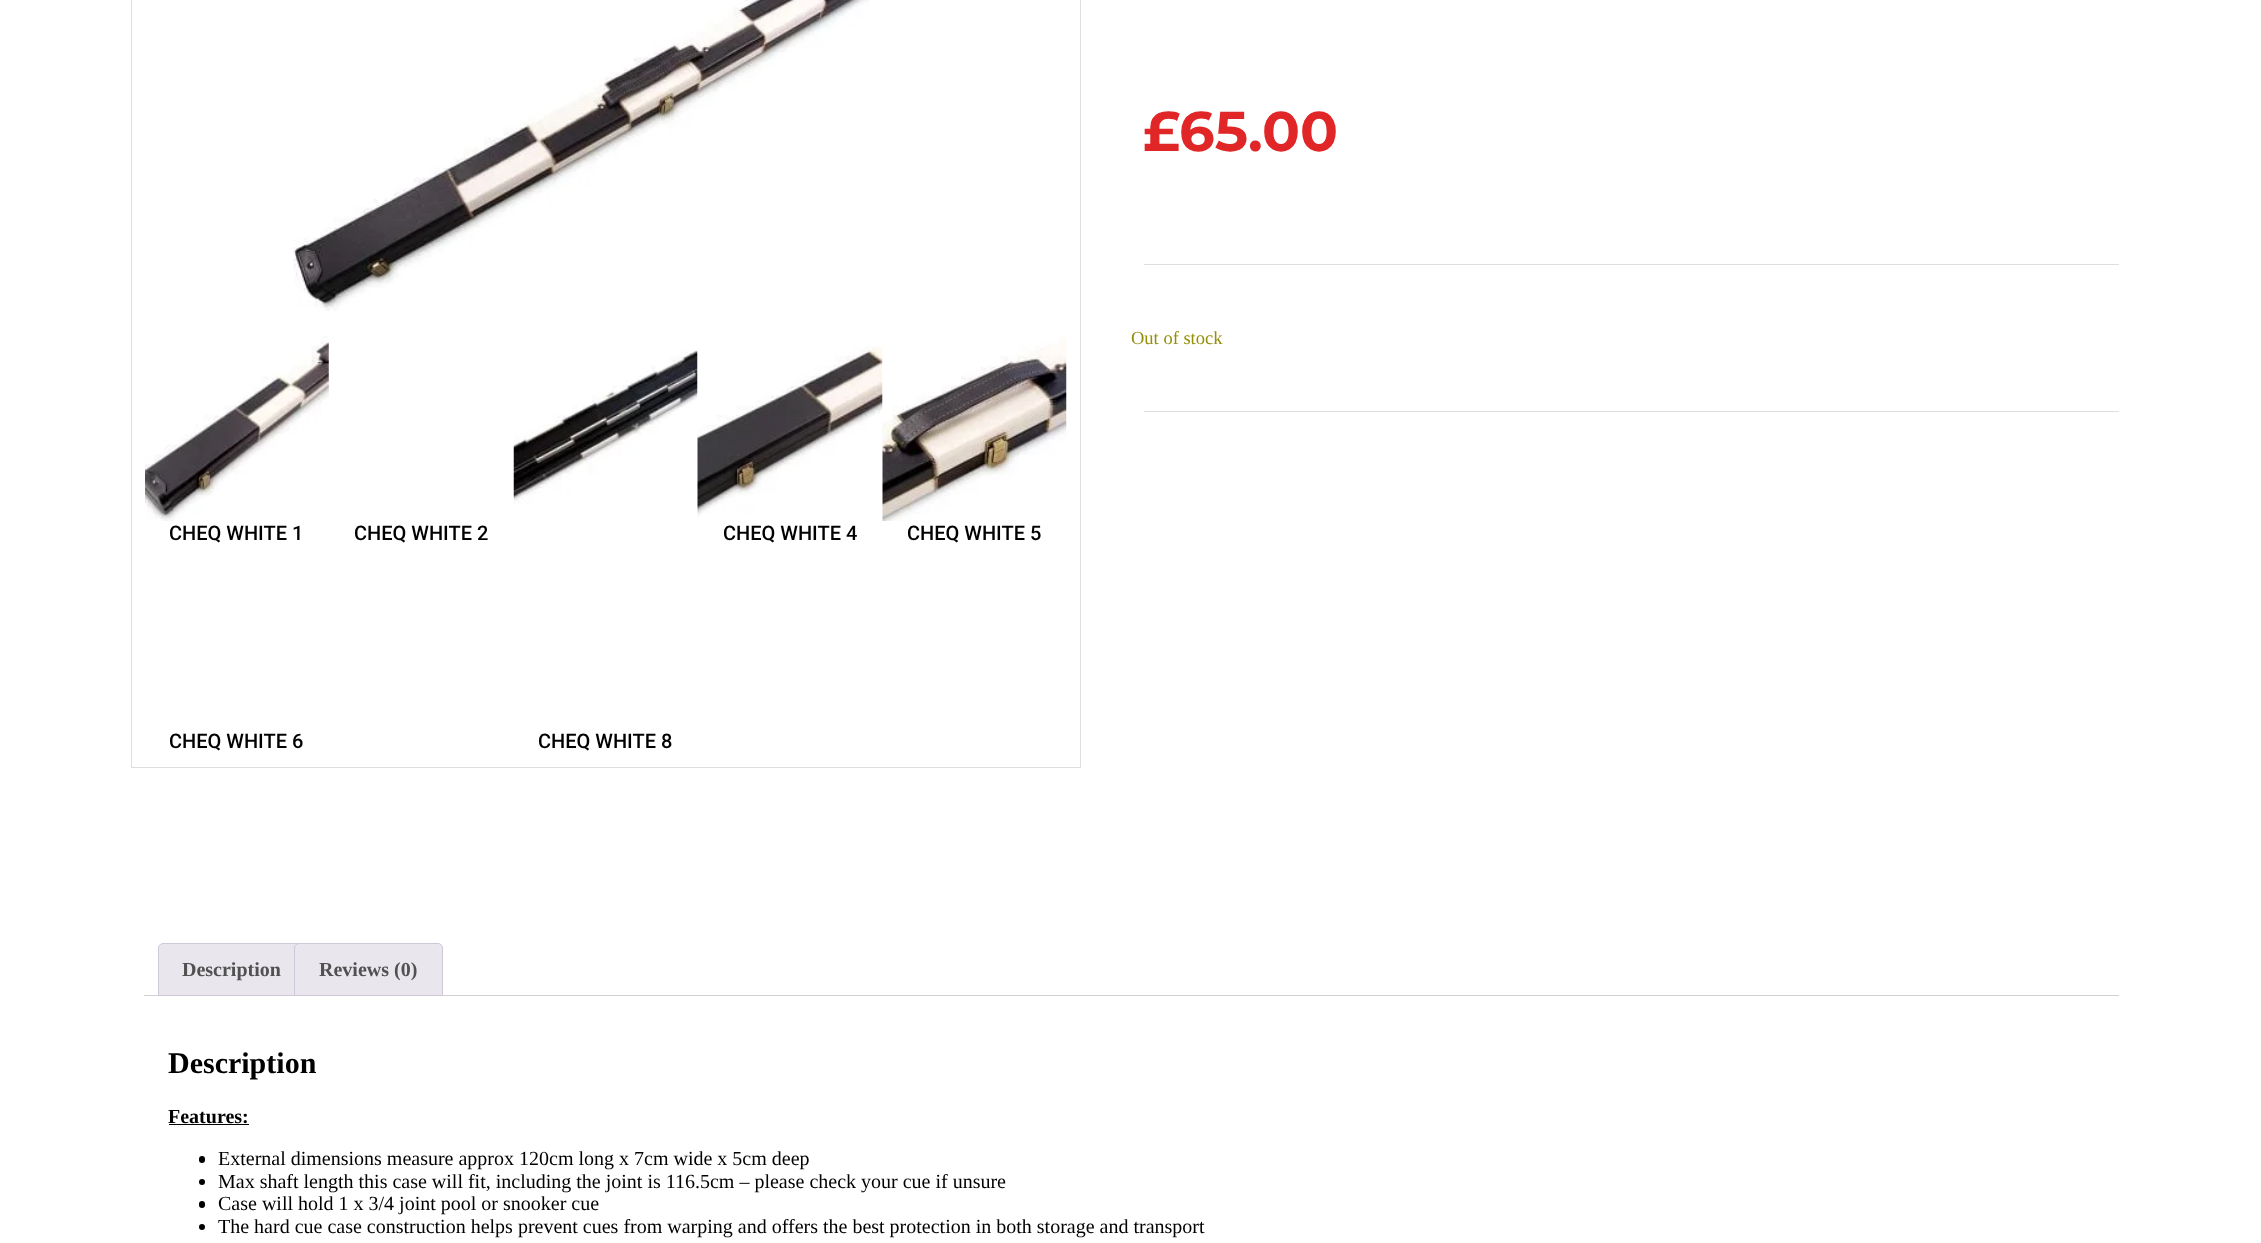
async function draw(canvas) {
  canvas.width = 2261;
  canvas.height = 1243;
  const ctx = canvas.getContext('2d');
  ctx.miterLimit = 4;
  ctx.fontKerning = 'normal';
  function label(s, x, y, font, color) {
    ctx.font = font;
    ctx.fillStyle = color;
    ctx.fillText(s, x, y);
  }
  function rect(x, y, w, h, color) {
    ctx.fillStyle = color;
    ctx.fillRect(x, y, w, h);
  }
  function roundedRect(x, y, w, h, r, color) {
    ctx.fillStyle = color;
    ctx.beginPath();
    ctx.roundRect(x, y, w, h, r);
    ctx.fill();
  }
  async function image(src, x, y, w, h) {
    const img = new Image();
    img.src = src;
    await img.decode();
    ctx.drawImage(img, x, y, w, h);
  }

  rect(0, 0, 2261, 1243, '#fff');
  label('£', 1143, 151, 'bold 56px Montserrat', '#e02626');
  label('65.00', 1179, 151, 'bold 56px Montserrat', '#e02626');
  rect(1144, 264, 975, 1, '#dedede');
  label('Out of stock', 1131, 344, '18.5px Liberation Serif', '#958e09');
  rect(1144, 411, 975, 1, '#dedede');
  ctx.strokeStyle = '#dedede';
  ctx.strokeRect(131.5, -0.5, 949, 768);
  await image('assets/img1.png', 293, 0, 576, 311);
  await image('assets/img2.png', 513, 350, 185, 154);
  await image('assets/img3.png', 145, 336, 184, 185);
  label('CHEQ WHITE 1', 169, 540, '500 20px Roboto', '#000');
  label('CHEQ WHITE 2', 354, 540, '500 20px Roboto', '#000');
  await image('assets/img4.png', 697, 346, 186, 171);
  label('CHEQ WHITE 4', 723, 540, '500 20px Roboto', '#000');
  await image('assets/img5.png', 882, 336, 185, 185);
  label('CHEQ WHITE 5', 907, 540, '500 20px Roboto', '#000');
  label('CHEQ WHITE 6', 169, 748, '500 20px Roboto', '#000');
  label('CHEQ WHITE 8', 538, 748, '500 20px Roboto', '#000');
  rect(144, 995, 1975, 1, '#d3ced2');
  ctx.fillStyle = '#e9e6ed';
  ctx.beginPath();
  ctx.roundRect(158.5, 943.5, 147, 52, [4.5, 4.5, 0, 0]);
  ctx.fill();
  ctx.strokeStyle = '#cfc8d8';
  ctx.stroke();
  label('Description', 182, 976, 'bold 20px Liberation Serif', '#515151');
  ctx.fillStyle = '#e9e6ed';
  ctx.beginPath();
  ctx.roundRect(294.5, 943.5, 148, 52, [4.5, 4.5, 0, 0]);
  ctx.fill();
  ctx.stroke();
  label('Reviews (0)', 319, 976, 'bold 20px Liberation Serif', '#515151');
  label('Description', 168, 1073, 'bold 30px Liberation Serif', '#000');
  label('Features:', 168, 1123, 'bold 20px Liberation Serif', '#000');
  rect(169, 1124, 80, 1, '#000');
  roundedRect(199, 1156, 6, 7, 3, '#000');
  label('External dimensions measure approx 120cm long x 7cm wide x 5cm deep', 218, 1165, '20px Liberation Serif', '#000');
  ctx.beginPath();
  ctx.arc(202, 1182, 3, 0, 2 * Math.PI);
  ctx.fill();
  label('Max shaft length this case will fit, including the joint is 116.5cm – please check your cue if unsure', 218, 1188, '20px Liberation Serif', '#000');
  roundedRect(199, 1201, 6, 7, 3, '#000');
  label('Case will hold 1 x 3/4 joint pool or snooker cue', 218, 1210, '20px Liberation Serif', '#000');
  ctx.beginPath();
  ctx.arc(202, 1227, 3, 0, 2 * Math.PI);
  ctx.fill();
  label('The hard cue case construction helps prevent cues from warping and offers the best protection in both storage and transport', 218, 1233, '20px Liberation Serif', '#000');
}

draw(document.querySelector('canvas'));
